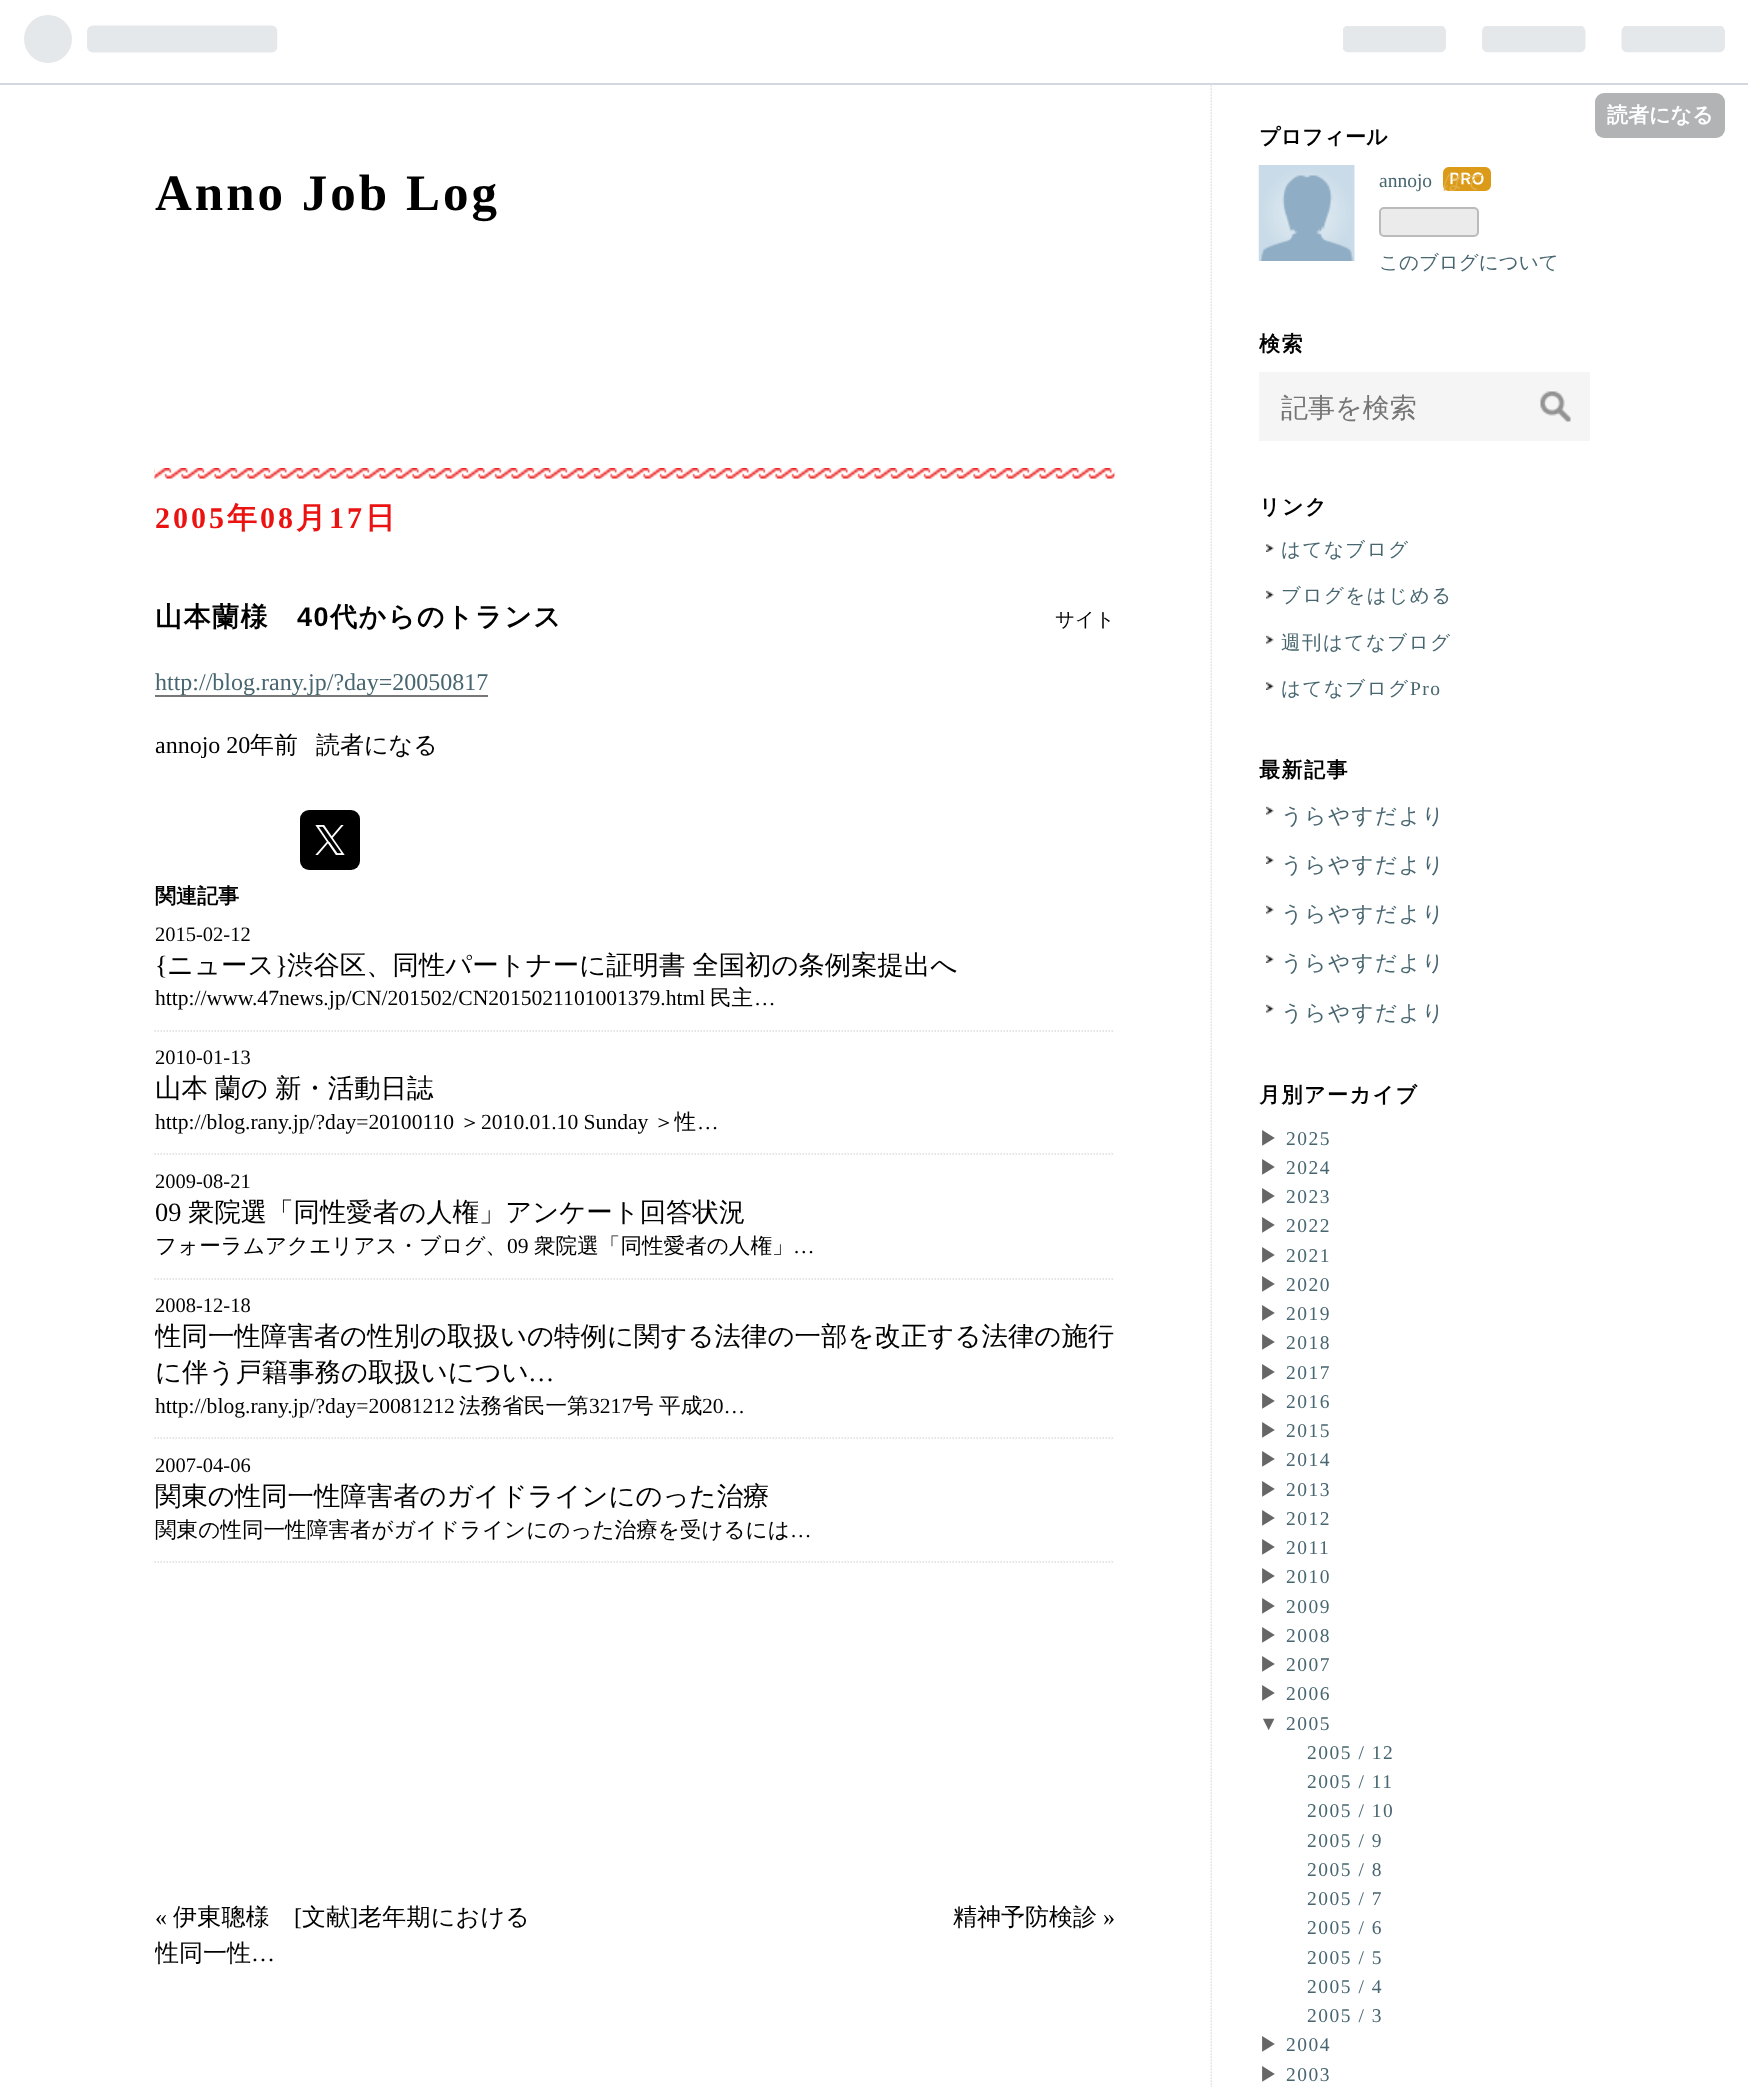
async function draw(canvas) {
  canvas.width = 1748;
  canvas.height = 2087;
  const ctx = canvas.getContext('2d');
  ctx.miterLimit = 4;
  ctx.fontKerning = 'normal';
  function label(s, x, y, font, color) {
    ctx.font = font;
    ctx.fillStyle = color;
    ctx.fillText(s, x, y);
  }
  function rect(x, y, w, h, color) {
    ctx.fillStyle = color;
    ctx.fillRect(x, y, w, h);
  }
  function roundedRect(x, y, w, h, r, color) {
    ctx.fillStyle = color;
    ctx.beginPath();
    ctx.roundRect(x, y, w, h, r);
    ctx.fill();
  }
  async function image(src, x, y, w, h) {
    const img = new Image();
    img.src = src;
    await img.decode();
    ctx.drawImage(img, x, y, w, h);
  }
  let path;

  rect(0, 0, 1748, 2087, '#fff');
  rect(0, 83, 1748, 2, '#d2d8dd');
  await image('assets/img1.png', 24, 15, 254, 48);
  await image('assets/img2.png', 1343, 26, 382, 27);
  roundedRect(1595, 93, 130, 45, 9, '#b1b3b5');
  label('読者になる', 1607, 122, 'bold 21px WenQuanYi Zen Hei', '#fff');
  await image('assets/img3.png', 1210, 85, 2, 2002);
  await image('assets/img4.png', 154, 468, 961, 11);
  ctx.letterSpacing = '3px';
  label('2005', 155, 528, 'bold 30px Liberation Serif', '#eb1212');
  label('年', 227, 528, 'bold 30px WenQuanYi Zen Hei', '#eb1212');
  label('08', 260, 528, 'bold 30px Liberation Serif', '#eb1212');
  label('月', 296, 528, 'bold 30px WenQuanYi Zen Hei', '#eb1212');
  label('17', 329, 528, 'bold 30px Liberation Serif', '#eb1212');
  label('日', 365, 528, 'bold 30px WenQuanYi Zen Hei', '#eb1212');
  ctx.letterSpacing = '1.5px';
  label('山本蘭様', 155, 626, 'bold 27px WenQuanYi Zen Hei', '#000');
  label('40', 297, 626, 'bold 27px Liberation Sans', '#000');
  label('代からのトランス', 330, 626, 'bold 27px WenQuanYi Zen Hei', '#000');
  ctx.letterSpacing = '0px';
  label('サイト', 1055, 626, '500 19.5px WenQuanYi Zen Hei', '#000');
  rect(155, 695, 333, 2, '#777');
  label('http://blog.rany.jp/?day=20050817', 155, 690, '24px Liberation Serif', '#486670');
  label('annojo 20', 155, 753, '24px Liberation Serif', '#000');
  label('年前', 250, 753, '500 24px WenQuanYi Zen Hei', '#000');
  label('読者になる', 316, 753, '500 24px WenQuanYi Zen Hei', '#000');
  roundedRect(300, 810, 60, 60, 9, '#000');
  await image('assets/img5.png', 315, 825, 30, 30);
  label('関連記事', 155, 903, 'bold 21px WenQuanYi Zen Hei', '#000');
  path = new Path2D('M154.5 1031H1114.5');
  ctx.strokeStyle = '#ddd';
  ctx.lineWidth = 1.5;
  ctx.setLineDash([1.5, 1.5]);
  ctx.stroke(path);
  label('2015-02-12', 155, 941, '20.5px Liberation Serif', '#000');
  label('{', 155, 974, '26.4px Liberation Serif', '#000');
  label('ニュース', 167, 974, '500 26.4px WenQuanYi Zen Hei', '#000');
  label('}', 275, 974, '26.4px Liberation Serif', '#000');
  ctx.wordSpacing = '-1px';
  label('渋谷区、同性パートナーに証明書 全国初の条例案提出へ', 287, 974, '500 26.4px WenQuanYi Zen Hei', '#000');
  ctx.wordSpacing = '0px';
  label('http://www.47news.jp/CN/201502/CN2015021101001379.html', 155, 1005, '21.6px Liberation Serif', '#000');
  label('民主', 710, 1005, '500 21.6px WenQuanYi Zen Hei', '#000');
  label('…', 754, 1005, '21.6px Liberation Serif', '#000');
  path = new Path2D('M154.5 1154H1114.5');
  ctx.stroke(path);
  label('2010-01-13', 155, 1064, '20.5px Liberation Serif', '#000');
  ctx.wordSpacing = '-1px';
  label('山本 蘭の 新・活動日誌', 155, 1097, '500 26.4px WenQuanYi Zen Hei', '#000');
  ctx.wordSpacing = '0px';
  label('http://blog.rany.jp/?day=20100110', 155, 1129, '21.6px Liberation Serif', '#000');
  label('＞', 459, 1129, '500 21.6px WenQuanYi Zen Hei', '#000');
  label('2010.01.10 Sunday', 481, 1129, '21.6px Liberation Serif', '#000');
  label('＞性', 653, 1129, '500 21.6px WenQuanYi Zen Hei', '#000');
  label('…', 697, 1129, '21.6px Liberation Serif', '#000');
  path = new Path2D('M154.5 1279H1114.5');
  ctx.stroke(path);
  label('2009-08-21', 155, 1188, '20.5px Liberation Serif', '#000');
  label('09', 155, 1221, '26.4px Liberation Serif', '#000');
  label('衆院選「同性愛者の人権」アンケート回答状況', 188, 1221, '500 26.4px WenQuanYi Zen Hei', '#000');
  label('フォーラムアクエリアス・ブログ、', 155, 1253, '500 21.6px WenQuanYi Zen Hei', '#000');
  label('09', 507, 1253, '21.6px Liberation Serif', '#000');
  label('衆院選「同性愛者の人権」', 534, 1253, '500 21.6px WenQuanYi Zen Hei', '#000');
  label('…', 793, 1253, '21.6px Liberation Serif', '#000');
  path = new Path2D('M154.5 1438H1114.5');
  ctx.stroke(path);
  label('2008-12-18', 155, 1312, '20.5px Liberation Serif', '#000');
  ctx.save();
  ctx.beginPath();
  ctx.rect(155, 468, 960, 1215);
  ctx.clip();
  ctx.letterSpacing = '0.05px';
  label('性同一性障害者の性別の取扱いの特例に関する法律の一部を改正する法律の施行', 155, 1345, '500 26.4px WenQuanYi Zen Hei', '#000');
  ctx.restore();
  label('に伴う戸籍事務の取扱いについ', 155, 1381, '500 26.4px WenQuanYi Zen Hei', '#000');
  label('…', 528, 1381, '26.4px Liberation Serif', '#000');
  label('http://blog.rany.jp/?day=20081212', 155, 1413, '21.6px Liberation Serif', '#000');
  label('法務省民一第', 459, 1413, '500 21.6px WenQuanYi Zen Hei', '#000');
  label('3217', 589, 1413, '21.6px Liberation Serif', '#000');
  ctx.wordSpacing = '-1px';
  label('号 平成', 632, 1413, '500 21.6px WenQuanYi Zen Hei', '#000');
  ctx.wordSpacing = '0px';
  label('20…', 702, 1413, '21.6px Liberation Serif', '#000');
  path = new Path2D('M154.5 1562H1114.5');
  ctx.stroke(path);
  label('2007-04-06', 155, 1472, '20.5px Liberation Serif', '#000');
  label('関東の性同一性障害者のガイドラインにのった治療', 155, 1505, '500 26.4px WenQuanYi Zen Hei', '#000');
  label('関東の性同一性障害者がガイドラインにのった治療を受けるには', 155, 1537, '500 21.6px WenQuanYi Zen Hei', '#000');
  label('…', 790, 1537, '21.6px Liberation Serif', '#000');
  label('«', 155, 1925, '24px Liberation Serif', '#000');
  ctx.letterSpacing = '0.25px';
  label('伊東聰様', 173, 1925, '500 24px WenQuanYi Zen Hei', '#000');
  label('[', 294, 1925, '24px Liberation Serif', '#000');
  label('文献', 302, 1925, '500 24px WenQuanYi Zen Hei', '#000');
  label(']', 350, 1925, '24px Liberation Serif', '#000');
  label('老年期における', 358, 1925, '500 24px WenQuanYi Zen Hei', '#000');
  ctx.save();
  ctx.beginPath();
  ctx.rect(155, 1899, 960, 72);
  ctx.clip();
  ctx.letterSpacing = '0px';
  label('性同一性', 155, 1961, '500 24px WenQuanYi Zen Hei', '#000');
  ctx.restore();
  ctx.letterSpacing = '0px';
  label('…', 251, 1961, '24px Liberation Serif', '#000');
  label('精神予防検診', 953, 1925, '500 24px WenQuanYi Zen Hei', '#000');
  label('»', 1103, 1925, '24px Liberation Serif', '#000');
  label('プロフィール', 1259, 144, 'bold 21px WenQuanYi Zen Hei', '#000');
  await image('assets/img6.png', 1258, 165, 97, 96);
  label('annojo', 1379, 187, '19.5px Liberation Serif', '#486670');
  await image('assets/img7.png', 1443, 167, 48, 24);
  label('はて', 1442, 188, 'italic 500 19.5px WenQuanYi Zen Hei', '#e3b04a');
  ctx.fillStyle = '#ebebeb';
  ctx.beginPath();
  ctx.roundRect(1380, 208, 98, 28, 4);
  ctx.fill();
  ctx.strokeStyle = '#bbb';
  ctx.lineWidth = 2;
  ctx.setLineDash([]);
  ctx.stroke();
  label('このブログについて', 1379, 269, '500 19.5px WenQuanYi Zen Hei', '#486670');
  ctx.letterSpacing = '1.5px';
  label('検索', 1259, 351, 'bold 21px WenQuanYi Zen Hei', '#000');
  rect(1259, 372, 331, 69, '#f5f5f5');
  ctx.letterSpacing = '0px';
  label('記事を検索', 1281, 417, '500 27px WenQuanYi Zen Hei', '#757575');
  await image('assets/img8.png', 1540, 391, 31, 31);
  ctx.letterSpacing = '1.5px';
  label('リンク', 1259, 514, 'bold 21px WenQuanYi Zen Hei', '#000');
  await image('assets/img9.png', 1266, 544, 8, 8);
  label('はてなブログ', 1281, 556, '500 19.5px WenQuanYi Zen Hei', '#486670');
  await image('assets/img10.png', 1266, 590, 8, 9);
  label('ブログをはじめる', 1281, 602, '500 19.5px WenQuanYi Zen Hei', '#486670');
  await image('assets/img10.png', 1266, 635, 8, 9);
  label('週刊はてなブログ', 1281, 649, '500 19.5px WenQuanYi Zen Hei', '#486670');
  await image('assets/img9.png', 1266, 682, 8, 8);
  label('はてなブログ', 1281, 695, '500 19.5px WenQuanYi Zen Hei', '#486670');
  label('Pro', 1410, 695, '19.5px Liberation Serif', '#486670');
  label('最新記事', 1259, 777, 'bold 21px WenQuanYi Zen Hei', '#000');
  await image('assets/img10.png', 1266, 806, 8, 9);
  label('うらやすだより', 1281, 823, '500 21.5px WenQuanYi Zen Hei', '#486670');
  await image('assets/img9.png', 1266, 856, 8, 8);
  label('うらやすだより', 1281, 872, '500 21.5px WenQuanYi Zen Hei', '#486670');
  await image('assets/img10.png', 1266, 905, 8, 9);
  label('うらやすだより', 1281, 921, '500 21.5px WenQuanYi Zen Hei', '#486670');
  await image('assets/img9.png', 1266, 955, 8, 8);
  label('うらやすだより', 1281, 970, '500 21.5px WenQuanYi Zen Hei', '#486670');
  await image('assets/img10.png', 1266, 1004, 8, 9);
  label('うらやすだより', 1281, 1020, '500 21.5px WenQuanYi Zen Hei', '#486670');
  label('月別アーカイブ', 1259, 1102, 'bold 21px WenQuanYi Zen Hei', '#000');
  label('▶', 1259, 1145, '500 19.5px WenQuanYi Zen Hei', '#666');
  label('2025', 1286, 1145, '19.5px Liberation Serif', '#486670');
  label('▶', 1259, 1174, '500 19.5px WenQuanYi Zen Hei', '#666');
  label('2024', 1286, 1174, '19.5px Liberation Serif', '#486670');
  label('▶', 1259, 1203, '500 19.5px WenQuanYi Zen Hei', '#666');
  label('2023', 1286, 1203, '19.5px Liberation Serif', '#486670');
  label('▶', 1259, 1232, '500 19.5px WenQuanYi Zen Hei', '#666');
  label('2022', 1286, 1232, '19.5px Liberation Serif', '#486670');
  label('▶', 1259, 1262, '500 19.5px WenQuanYi Zen Hei', '#666');
  label('2021', 1286, 1262, '19.5px Liberation Serif', '#486670');
  label('▶', 1259, 1291, '500 19.5px WenQuanYi Zen Hei', '#666');
  label('2020', 1286, 1291, '19.5px Liberation Serif', '#486670');
  label('▶', 1259, 1320, '500 19.5px WenQuanYi Zen Hei', '#666');
  label('2019', 1286, 1320, '19.5px Liberation Serif', '#486670');
  label('▶', 1259, 1349, '500 19.5px WenQuanYi Zen Hei', '#666');
  label('2018', 1286, 1349, '19.5px Liberation Serif', '#486670');
  label('▶', 1259, 1379, '500 19.5px WenQuanYi Zen Hei', '#666');
  label('2017', 1286, 1379, '19.5px Liberation Serif', '#486670');
  label('▶', 1259, 1408, '500 19.5px WenQuanYi Zen Hei', '#666');
  label('2016', 1286, 1408, '19.5px Liberation Serif', '#486670');
  label('▶', 1259, 1437, '500 19.5px WenQuanYi Zen Hei', '#666');
  label('2015', 1286, 1437, '19.5px Liberation Serif', '#486670');
  label('▶', 1259, 1466, '500 19.5px WenQuanYi Zen Hei', '#666');
  label('2014', 1286, 1466, '19.5px Liberation Serif', '#486670');
  label('▶', 1259, 1496, '500 19.5px WenQuanYi Zen Hei', '#666');
  label('2013', 1286, 1496, '19.5px Liberation Serif', '#486670');
  label('▶', 1259, 1525, '500 19.5px WenQuanYi Zen Hei', '#666');
  label('2012', 1286, 1525, '19.5px Liberation Serif', '#486670');
  label('▶', 1259, 1554, '500 19.5px WenQuanYi Zen Hei', '#666');
  label('2011', 1286, 1554, '19.5px Liberation Serif', '#486670');
  label('▶', 1259, 1583, '500 19.5px WenQuanYi Zen Hei', '#666');
  label('2010', 1286, 1583, '19.5px Liberation Serif', '#486670');
  label('▶', 1259, 1613, '500 19.5px WenQuanYi Zen Hei', '#666');
  label('2009', 1286, 1613, '19.5px Liberation Serif', '#486670');
  label('▶', 1259, 1642, '500 19.5px WenQuanYi Zen Hei', '#666');
  label('2008', 1286, 1642, '19.5px Liberation Serif', '#486670');
  label('▶', 1259, 1671, '500 19.5px WenQuanYi Zen Hei', '#666');
  label('2007', 1286, 1671, '19.5px Liberation Serif', '#486670');
  label('▶', 1259, 1700, '500 19.5px WenQuanYi Zen Hei', '#666');
  label('2006', 1286, 1700, '19.5px Liberation Serif', '#486670');
  label('▼', 1259, 1730, '19.5px Liberation Serif', '#666');
  label('2005', 1286, 1730, '19.5px Liberation Serif', '#486670');
  label('2005 / 12', 1307, 1759, '19.5px Liberation Serif', '#486670');
  label('2005 / 11', 1307, 1788, '19.5px Liberation Serif', '#486670');
  label('2005 / 10', 1307, 1817, '19.5px Liberation Serif', '#486670');
  label('2005 / 9', 1307, 1847, '19.5px Liberation Serif', '#486670');
  label('2005 / 8', 1307, 1876, '19.5px Liberation Serif', '#486670');
  label('2005 / 7', 1307, 1905, '19.5px Liberation Serif', '#486670');
  label('2005 / 6', 1307, 1934, '19.5px Liberation Serif', '#486670');
  label('2005 / 5', 1307, 1964, '19.5px Liberation Serif', '#486670');
  label('2005 / 4', 1307, 1993, '19.5px Liberation Serif', '#486670');
  label('2005 / 3', 1307, 2022, '19.5px Liberation Serif', '#486670');
  label('▶', 1259, 2051, '500 19.5px WenQuanYi Zen Hei', '#666');
  label('2004', 1286, 2051, '19.5px Liberation Serif', '#486670');
  label('▶', 1259, 2081, '500 19.5px WenQuanYi Zen Hei', '#666');
  label('2003', 1286, 2081, '19.5px Liberation Serif', '#486670');
  ctx.letterSpacing = '3px';
  label('Anno Job Log', 155, 210, 'bold 51px Liberation Serif', '#000');
}

draw(document.querySelector('canvas'));
